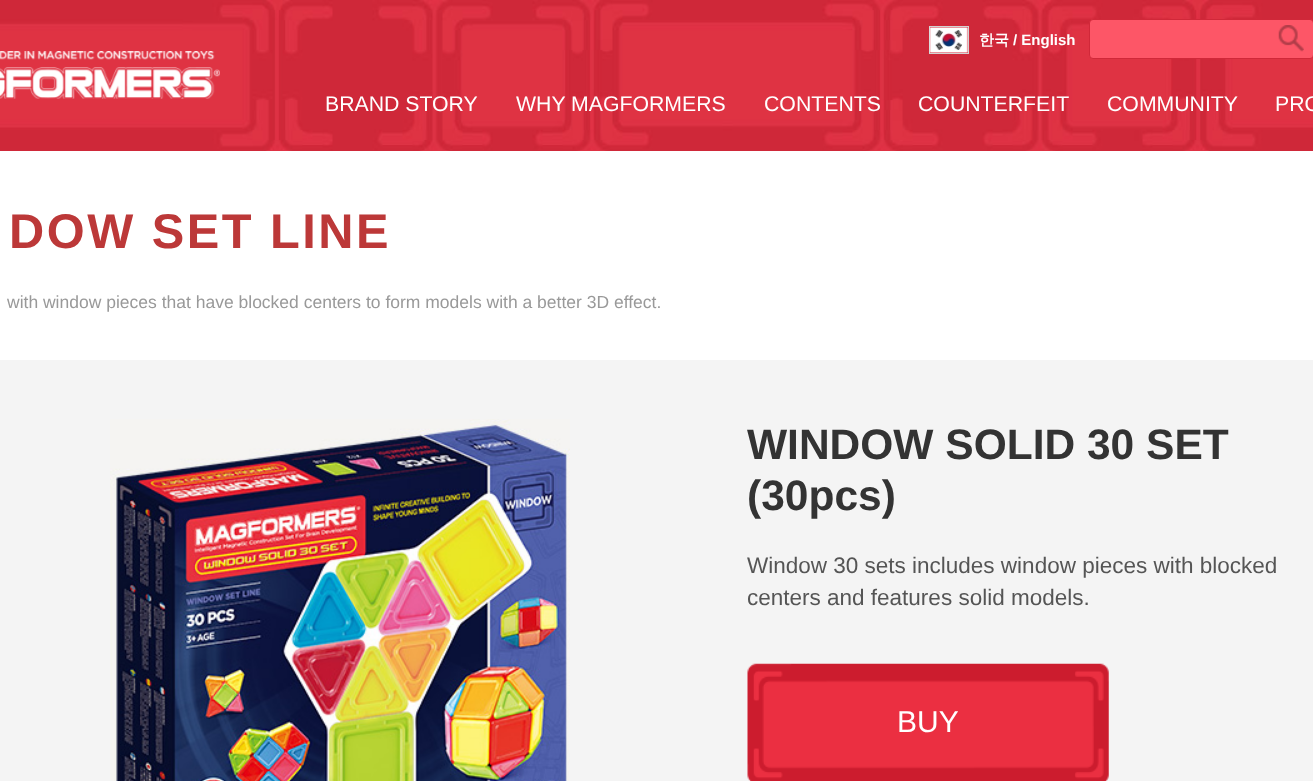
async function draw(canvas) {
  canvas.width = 1313;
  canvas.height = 781;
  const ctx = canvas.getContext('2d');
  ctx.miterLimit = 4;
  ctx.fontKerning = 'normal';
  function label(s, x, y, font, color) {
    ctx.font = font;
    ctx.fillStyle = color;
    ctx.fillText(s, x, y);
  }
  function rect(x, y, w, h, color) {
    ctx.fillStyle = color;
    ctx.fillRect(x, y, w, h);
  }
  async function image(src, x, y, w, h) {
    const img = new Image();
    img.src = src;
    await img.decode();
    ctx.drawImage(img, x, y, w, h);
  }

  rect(0, 0, 1313, 781, '#fff');
  await image('assets/img1.png', 0, 0, 1313, 151);
  ctx.strokeStyle = '#d3d3d3';
  ctx.strokeRect(929.5, 26.5, 39, 27);
  await image('assets/img2.png', 929, 27, 39, 26);
  label('한국', 979, 45, 'bold 15px WenQuanYi Zen Hei', '#fff');
  label('/ English', 1013, 45, 'bold 15px Liberation Sans', '#fff');
  ctx.fillStyle = '#fd5667';
  ctx.beginPath();
  ctx.roundRect(1089.5, 19.5, 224, 39, 3.5);
  ctx.fill();
  ctx.strokeStyle = '#d02839';
  ctx.stroke();
  await image('assets/img3.png', 1278, 25, 26, 27);
  await image('assets/img4.png', 0, 51, 220, 48);
  label('BRAND STORY', 325, 111, '21.25px Liberation Sans', '#fff');
  label('WHY MAGFORMERS', 516, 111, '21.25px Liberation Sans', '#fff');
  label('CONTENTS', 764, 111, '21.25px Liberation Sans', '#fff');
  label('COUNTERFEIT', 918, 111, '21.25px Liberation Sans', '#fff');
  label('COMMUNITY', 1107, 111, '21.25px Liberation Sans', '#fff');
  label('PRO', 1275, 111, '21.25px Liberation Sans', '#fff');
  ctx.letterSpacing = '2.5px';
  label('DOW SET LINE', 9, 248, 'bold 48.75px Liberation Sans', '#bc3838');
  ctx.letterSpacing = '0px';
  label('with window pieces that have blocked centers to form models with a better 3D effect.', 7, 308, '17.5px Liberation Sans', '#999');
  rect(0, 360, 1313, 421, '#f4f4f4');
  await image('assets/img5.png', 110, 419, 460, 362);
  label('WINDOW SOLID 30 SET', 747, 459, 'bold 42.5px Liberation Sans', '#333');
  label('(30pcs)', 747, 510, 'bold 42.5px Liberation Sans', '#333');
  label('Window 30 sets includes window pieces with blocked', 747, 573, '22.5px Liberation Sans', '#555');
  label('centers and features solid models.', 747, 605, '22.5px Liberation Sans', '#555');
  await image('assets/img6.png', 747, 663, 362, 118);
  label('BUY', 897, 732, '30px Liberation Sans', '#fff');
}

draw(document.querySelector('canvas'));
